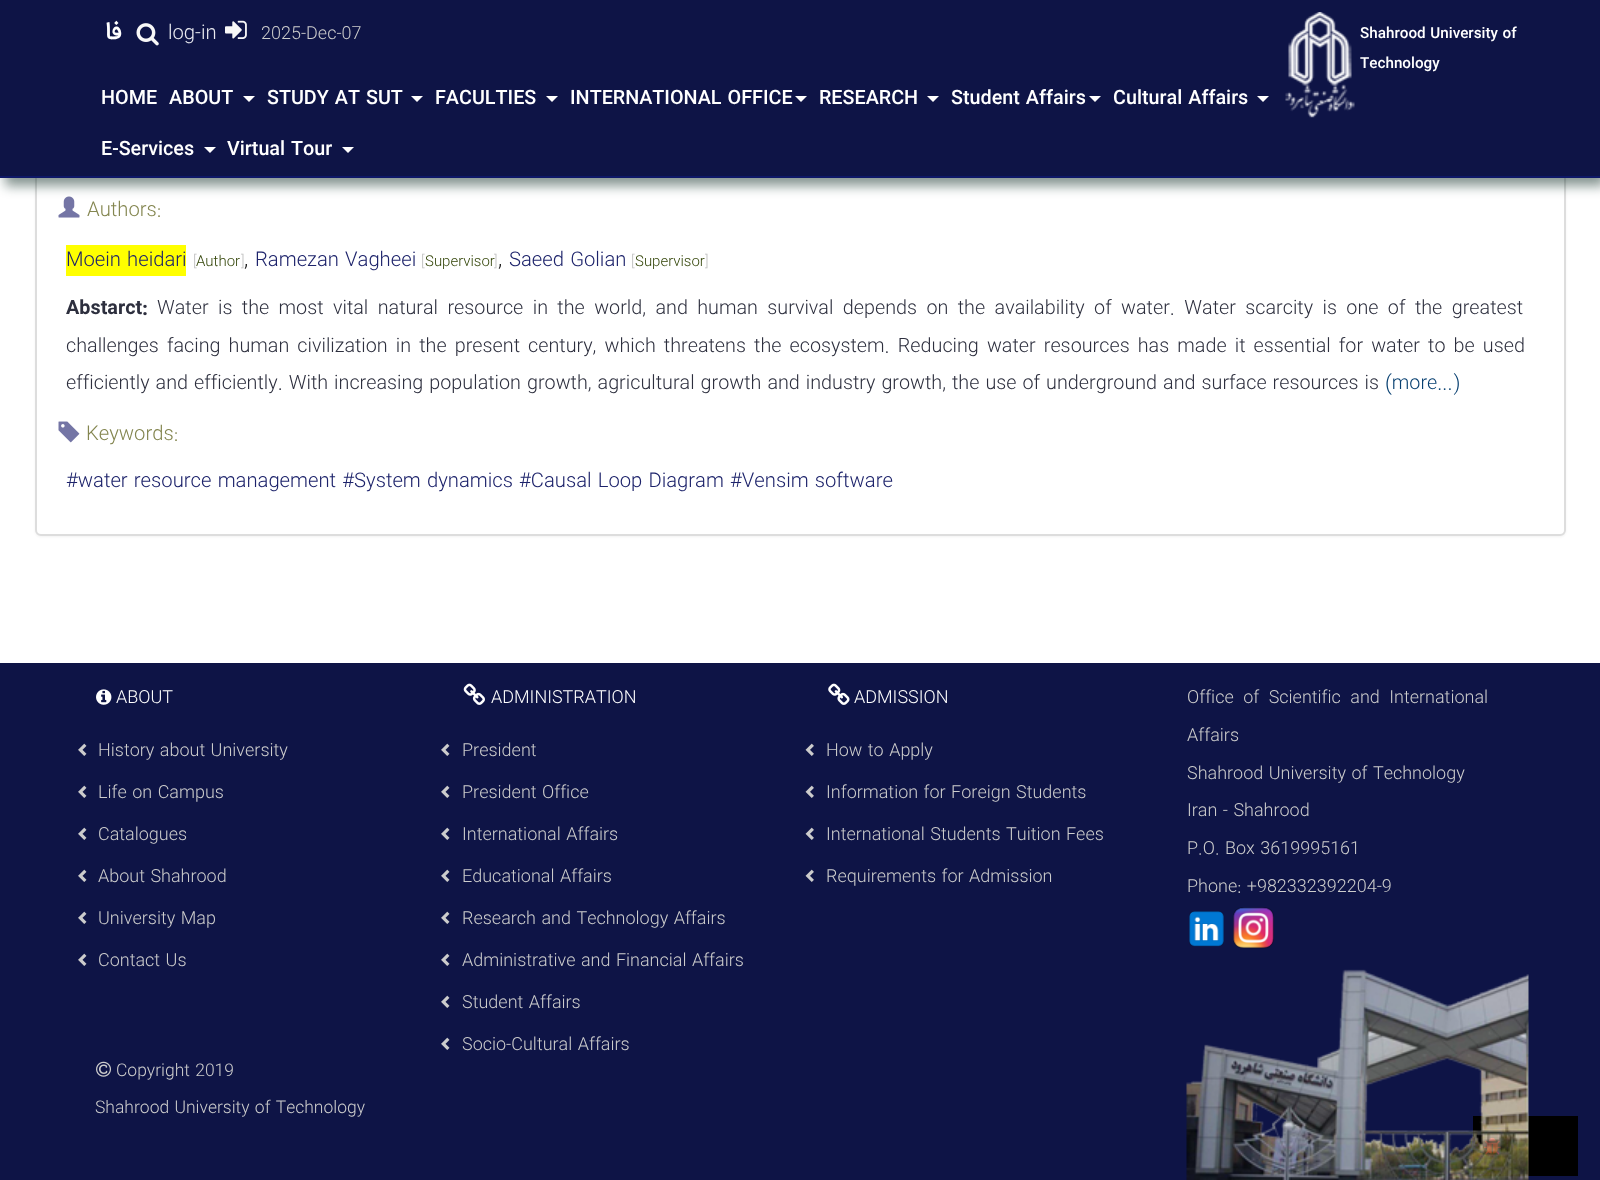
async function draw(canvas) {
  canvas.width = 1600;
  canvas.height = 1180;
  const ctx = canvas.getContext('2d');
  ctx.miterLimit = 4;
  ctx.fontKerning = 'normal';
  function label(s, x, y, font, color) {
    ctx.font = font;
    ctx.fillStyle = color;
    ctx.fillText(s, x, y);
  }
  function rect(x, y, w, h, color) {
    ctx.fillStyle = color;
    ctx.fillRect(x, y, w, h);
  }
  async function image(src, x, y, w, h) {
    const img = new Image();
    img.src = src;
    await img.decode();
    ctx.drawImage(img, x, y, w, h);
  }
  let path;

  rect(0, 0, 1600, 1180, '#fff');
  ctx.fillStyle = '#0000000d';
  ctx.filter = 'blur(1px)';
  ctx.beginPath();
  ctx.roundRect(35, 48, 1531, 489, 6);
  ctx.fill();
  ctx.filter = 'none';
  ctx.fillStyle = '#fff';
  ctx.beginPath();
  ctx.roundRect(36, 48, 1529, 487, 5);
  ctx.fill();
  ctx.strokeStyle = '#ddd';
  ctx.lineWidth = 2;
  ctx.stroke();
  await image('assets/img4.png', 58, 196, 22, 22);
  ctx.fillStyle = '#03231b7a';
  ctx.filter = 'blur(6px)';
  ctx.beginPath();
  ctx.rect(5, 9, 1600, 177);
  ctx.fill();
  ctx.filter = 'none';
  rect(0, 0, 1600, 176, '#0e1446');
  rect(0, 176, 1600, 2, '#0e1867');
  ctx.direction = 'rtl';
  label('فا', 122, 39, '500 25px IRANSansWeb', '#fff');
  await image('assets/img1.png', 136, 23, 23, 23);
  ctx.direction = 'ltr';
  label('log-in', 168, 39, '200 20.25px IRANSansWeb', '#eaebf1');
  await image('assets/img2.png', 225, 20, 22, 19);
  label('2025-Dec-07', 261, 39, '200 18px IRANSansWeb', '#ccc');
  label('HOME', 101, 104, '500 19.8px IRANSansWeb', '#fff');
  label('ABOUT', 169, 104, '500 19.8px IRANSansWeb', '#fff');
  path = new Path2D('M243 96H255L249 102Z');
  ctx.fill(path);
  label('STUDY AT SUT', 267, 104, '500 19.8px IRANSansWeb', '#fff');
  path = new Path2D('M411 96H423L417 102Z');
  ctx.fill(path);
  label('FACULTIES', 435, 104, '500 19.8px IRANSansWeb', '#fff');
  path = new Path2D('M546 96H558L552 102Z');
  ctx.fill(path);
  label('INTERNATIONAL OFFICE', 570, 104, '500 19.8px IRANSansWeb', '#fff');
  path = new Path2D('M795 96H807L801 102Z');
  ctx.fill(path);
  label('RESEARCH', 819, 104, '500 19.8px IRANSansWeb', '#fff');
  path = new Path2D('M927 96H939L933 102Z');
  ctx.fill(path);
  label('Student Affairs', 951, 104, '500 19.8px IRANSansWeb', '#fff');
  path = new Path2D('M1089 96H1101L1095 102Z');
  ctx.fill(path);
  label('Cultural Affairs', 1113, 104, '500 19.8px IRANSansWeb', '#fff');
  path = new Path2D('M1257 96H1269L1263 102Z');
  ctx.fill(path);
  label('E-Services', 101, 155, '500 19.8px IRANSansWeb', '#fff');
  path = new Path2D('M204 147H216L210 153Z');
  ctx.fill(path);
  label('Virtual Tour', 227, 155, '500 19.8px IRANSansWeb', '#fff');
  path = new Path2D('M342 147H354L348 153Z');
  ctx.fill(path);
  await image('assets/img3.png', 1285, 12, 70, 106);
  label('Shahrood University of', 1360, 38, '500 15.25px IRANSansWeb', '#fff');
  label('Technology', 1360, 68, '500 15.25px IRANSansWeb', '#fff');
  label('Authors:', 87, 216, '200 20.25px IRANSansWeb', '#848650');
  rect(66, 245, 120, 31, '#ff0');
  label('Moein heidari', 66, 266, '200 20.25px IRANSansWeb', '#1d236b');
  label('[', 193, 266, '200 15px IRANSansWeb', '#c0c0c0');
  label('Author', 196, 266, '200 15px IRANSansWeb', '#324407');
  label(']', 241, 266, '200 15px IRANSansWeb', '#c0c0c0');
  label(',', 244, 266, '200 22px IRANSansWeb', '#000');
  label('Ramezan Vagheei', 255, 266, '200 20.25px IRANSansWeb', '#1d236b');
  label('[', 421, 266, '200 15px IRANSansWeb', '#c0c0c0');
  label('Supervisor', 425, 266, '200 15px IRANSansWeb', '#324407');
  label(']', 494, 266, '200 15px IRANSansWeb', '#c0c0c0');
  label(',', 498, 266, '200 22px IRANSansWeb', '#000');
  label('Saeed Golian', 509, 266, '200 20.25px IRANSansWeb', '#1d236b');
  label('[', 631, 266, '200 15px IRANSansWeb', '#c0c0c0');
  label('Supervisor', 635, 266, '200 15px IRANSansWeb', '#324407');
  label(']', 705, 266, '200 15px IRANSansWeb', '#c0c0c0');
  label('Abstarct:', 66, 314, 'bold 19.8px IRANSansWeb', '#2d2f3e');
  ctx.wordSpacing = '3.4px';
  label('Water is the most vital natural resource in the world, and human survival depends on the availability of water. Water scarcity is one of the greatest', 157, 314, '200 19.8px IRANSansWeb', '#2d2f3e');
  ctx.wordSpacing = '2.1px';
  label('challenges facing human civilization in the present century, which threatens the ecosystem. Reducing water resources has made it essential for water to be used', 66, 352, '200 19.8px IRANSansWeb', '#2d2f3e');
  ctx.wordSpacing = '0px';
  label('efficiently and efficiently. With increasing population growth, agricultural growth and industry growth, the use of underground and surface resources is', 66, 389, '200 19.8px IRANSansWeb', '#2d2f3e');
  label('(more...)', 1385, 389, '200 19.8px IRANSansWeb', '#084071');
  await image('assets/img5.png', 58, 421, 22, 22);
  label('Keywords:', 86, 440, '200 20.25px IRANSansWeb', '#848650');
  label('#water resource management #System dynamics #Causal Loop Diagram #Vensim software', 66, 487, '200 20.25px IRANSansWeb', '#1d236b');
  rect(0, 663, 1600, 517, '#0e1446');
  await image('assets/img6.png', 96, 689, 16, 16);
  label('ABOUT', 116, 703, '300 18px IRANSansWeb', '#fff');
  await image('assets/img7.png', 78, 743, 9, 13);
  label('History about University', 98, 756, '200 18px IRANSansWeb', '#ccc');
  await image('assets/img7.png', 78, 785, 9, 13);
  label('Life on Campus', 98, 798, '200 18px IRANSansWeb', '#ccc');
  await image('assets/img7.png', 78, 827, 9, 13);
  label('Catalogues', 98, 840, '200 18px IRANSansWeb', '#ccc');
  await image('assets/img7.png', 78, 869, 9, 13);
  label('About Shahrood', 98, 882, '200 18px IRANSansWeb', '#ccc');
  await image('assets/img7.png', 78, 911, 9, 13);
  label('University Map', 98, 924, '200 18px IRANSansWeb', '#ccc');
  await image('assets/img7.png', 78, 953, 9, 13);
  label('Contact Us', 98, 966, '200 18px IRANSansWeb', '#ccc');
  await image('assets/img8.png', 96, 1061, 15, 16);
  label('Copyright 2019', 116, 1076, '200 17.5px IRANSansWeb', '#ccc');
  label('Shahrood University of Technology', 95, 1113, '200 17.5px IRANSansWeb', '#ccc');
  await image('assets/img9.png', 463, 683, 22, 22);
  label('ADMINISTRATION', 491, 703, '300 18px IRANSansWeb', '#fff');
  await image('assets/img7.png', 441, 743, 9, 13);
  label('President', 462, 756, '200 18px IRANSansWeb', '#ccc');
  await image('assets/img7.png', 441, 785, 9, 13);
  label('President Office', 462, 798, '200 18px IRANSansWeb', '#ccc');
  await image('assets/img7.png', 441, 827, 9, 13);
  label('International Affairs', 462, 840, '200 18px IRANSansWeb', '#ccc');
  await image('assets/img7.png', 441, 869, 9, 13);
  label('Educational Affairs', 462, 882, '200 18px IRANSansWeb', '#ccc');
  await image('assets/img7.png', 441, 911, 9, 13);
  label('Research and Technology Affairs', 462, 924, '200 18px IRANSansWeb', '#ccc');
  await image('assets/img7.png', 441, 953, 9, 13);
  label('Administrative and Financial Affairs', 462, 966, '200 18px IRANSansWeb', '#ccc');
  await image('assets/img7.png', 441, 995, 9, 13);
  label('Student Affairs', 462, 1008, '200 18px IRANSansWeb', '#ccc');
  await image('assets/img7.png', 441, 1037, 9, 13);
  label('Socio-Cultural Affairs', 462, 1050, '200 18px IRANSansWeb', '#ccc');
  await image('assets/img10.png', 828, 683, 22, 22);
  label('ADMISSION', 854, 703, '300 18px IRANSansWeb', '#fff');
  await image('assets/img11.png', 805, 743, 9, 13);
  label('How to Apply', 826, 756, '200 18px IRANSansWeb', '#ccc');
  await image('assets/img11.png', 805, 785, 9, 13);
  label('Information for Foreign Students', 826, 798, '200 18px IRANSansWeb', '#ccc');
  await image('assets/img11.png', 805, 827, 9, 13);
  label('International Students Tuition Fees', 826, 840, '200 18px IRANSansWeb', '#ccc');
  await image('assets/img11.png', 805, 869, 9, 13);
  label('Requirements for Admission', 826, 882, '200 18px IRANSansWeb', '#ccc');
  ctx.wordSpacing = '4px';
  label('Office of Scientific and International', 1187, 703, '200 18px IRANSansWeb', '#ccc');
  ctx.wordSpacing = '0px';
  label('Affairs', 1187, 741, '200 18px IRANSansWeb', '#ccc');
  label('Shahrood University of Technology', 1187, 779, '200 18px IRANSansWeb', '#ccc');
  label('Iran - Shahrood', 1187, 816, '200 18px IRANSansWeb', '#ccc');
  label('P.O. Box 3619995161', 1187, 854, '200 18px IRANSansWeb', '#ccc');
  label('Phone: +982332392204-9', 1187, 892, '200 18px IRANSansWeb', '#ccc');
  await image('assets/img12.png', 1189, 911, 35, 36);
  await image('assets/img13.png', 1233, 907, 41, 42);
  rect(1473, 1116, 105, 60, '#000');
  await image('assets/img15.png', 1483, 1137, 18, 18);
  await image('assets/img14.png', 1186, 969, 343, 211);
}

draw(document.querySelector('canvas'));
